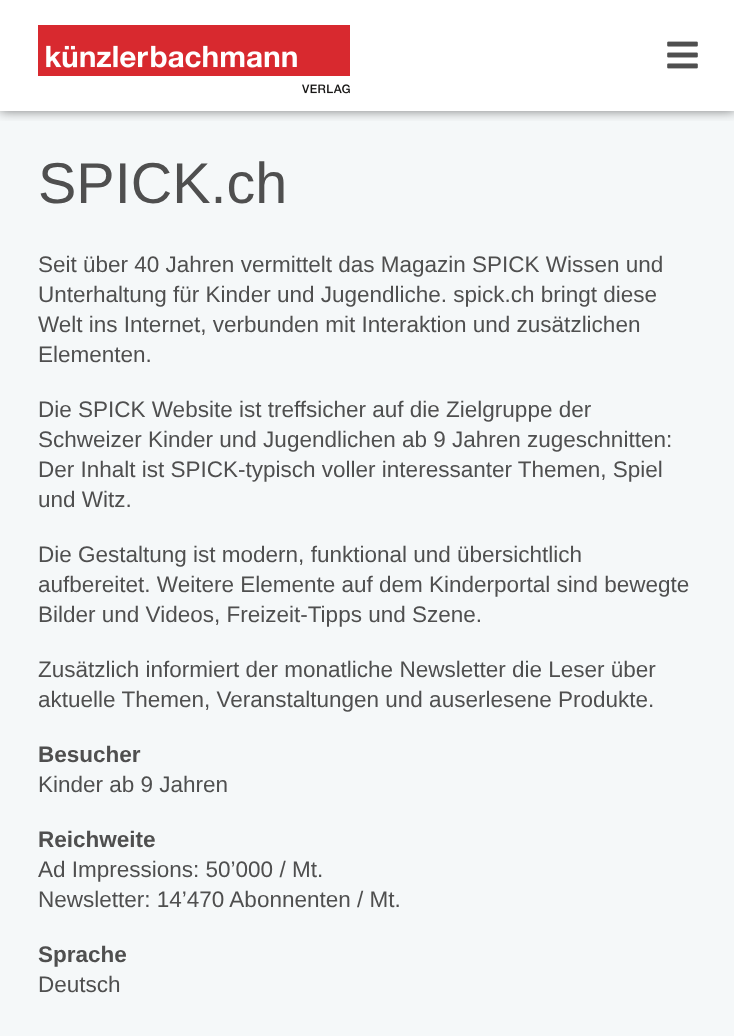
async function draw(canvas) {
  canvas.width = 734;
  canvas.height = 1036;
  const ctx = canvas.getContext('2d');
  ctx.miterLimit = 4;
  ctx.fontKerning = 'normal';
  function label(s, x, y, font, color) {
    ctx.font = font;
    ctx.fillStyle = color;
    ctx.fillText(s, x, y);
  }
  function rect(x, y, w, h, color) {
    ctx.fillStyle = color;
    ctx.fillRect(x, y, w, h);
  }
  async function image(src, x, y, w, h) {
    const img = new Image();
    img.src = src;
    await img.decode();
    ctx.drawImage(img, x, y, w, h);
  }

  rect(0, 0, 734, 1036, '#fff');
  rect(0, 111, 734, 925, '#f5f8f9');
  ctx.save();
  ctx.beginPath();
  ctx.rect(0, 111, 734, 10);
  ctx.clip();
  ctx.fillStyle = '#00000080';
  ctx.filter = 'blur(6px)';
  ctx.beginPath();
  ctx.rect(0, 0, 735, 111);
  ctx.fill();
  ctx.filter = 'none';
  ctx.restore();
  await image('assets/img1.png', 38, 25, 312, 69);
  await image('assets/img2.png', 667, 41, 31, 28);
  label('SPICK.ch', 38, 203, '57.5px Liberation Sans', '#4f4f4f');
  label('Seit über 40 Jahren vermittelt das Magazin SPICK Wissen und', 38, 272, '22.5px Liberation Sans', '#4f4f4f');
  label('Unterhaltung für Kinder und Jugendliche. spick.ch bringt diese', 38, 302, '22.5px Liberation Sans', '#4f4f4f');
  label('Welt ins Internet, verbunden mit Interaktion und zusätzlichen', 38, 332, '22.5px Liberation Sans', '#4f4f4f');
  label('Elementen.', 38, 362, '22.5px Liberation Sans', '#4f4f4f');
  label('Die SPICK Website ist treffsicher auf die Zielgruppe der', 38, 417, '22.5px Liberation Sans', '#4f4f4f');
  label('Schweizer Kinder und Jugendlichen ab 9 Jahren zugeschnitten:', 38, 447, '22.5px Liberation Sans', '#4f4f4f');
  label('Der Inhalt ist SPICK-typisch voller interessanter Themen, Spiel', 38, 477, '22.5px Liberation Sans', '#4f4f4f');
  label('und Witz.', 38, 507, '22.5px Liberation Sans', '#4f4f4f');
  label('Die Gestaltung ist modern, funktional und übersichtlich', 38, 562, '22.5px Liberation Sans', '#4f4f4f');
  label('aufbereitet. Weitere Elemente auf dem Kinderportal sind bewegte', 38, 592, '22.5px Liberation Sans', '#4f4f4f');
  label('Bilder und Videos, Freizeit-Tipps und Szene.', 38, 622, '22.5px Liberation Sans', '#4f4f4f');
  label('Zusätzlich informiert der monatliche Newsletter die Leser über', 38, 677, '22.5px Liberation Sans', '#4f4f4f');
  label('aktuelle Themen, Veranstaltungen und auserlesene Produkte.', 38, 707, '22.5px Liberation Sans', '#4f4f4f');
  label('Besucher', 38, 762, 'bold 22.5px Liberation Sans', '#4f4f4f');
  label('Kinder ab 9 Jahren', 38, 792, '22.5px Liberation Sans', '#4f4f4f');
  label('Reichweite', 38, 847, 'bold 22.5px Liberation Sans', '#4f4f4f');
  label('Ad Impressions: 50’000 / Mt.', 38, 877, '22.5px Liberation Sans', '#4f4f4f');
  label('Newsletter: 14’470 Abonnenten / Mt.', 38, 907, '22.5px Liberation Sans', '#4f4f4f');
  label('Sprache', 38, 962, 'bold 22.5px Liberation Sans', '#4f4f4f');
  label('Deutsch', 38, 992, '22.5px Liberation Sans', '#4f4f4f');
}

draw(document.querySelector('canvas'));
